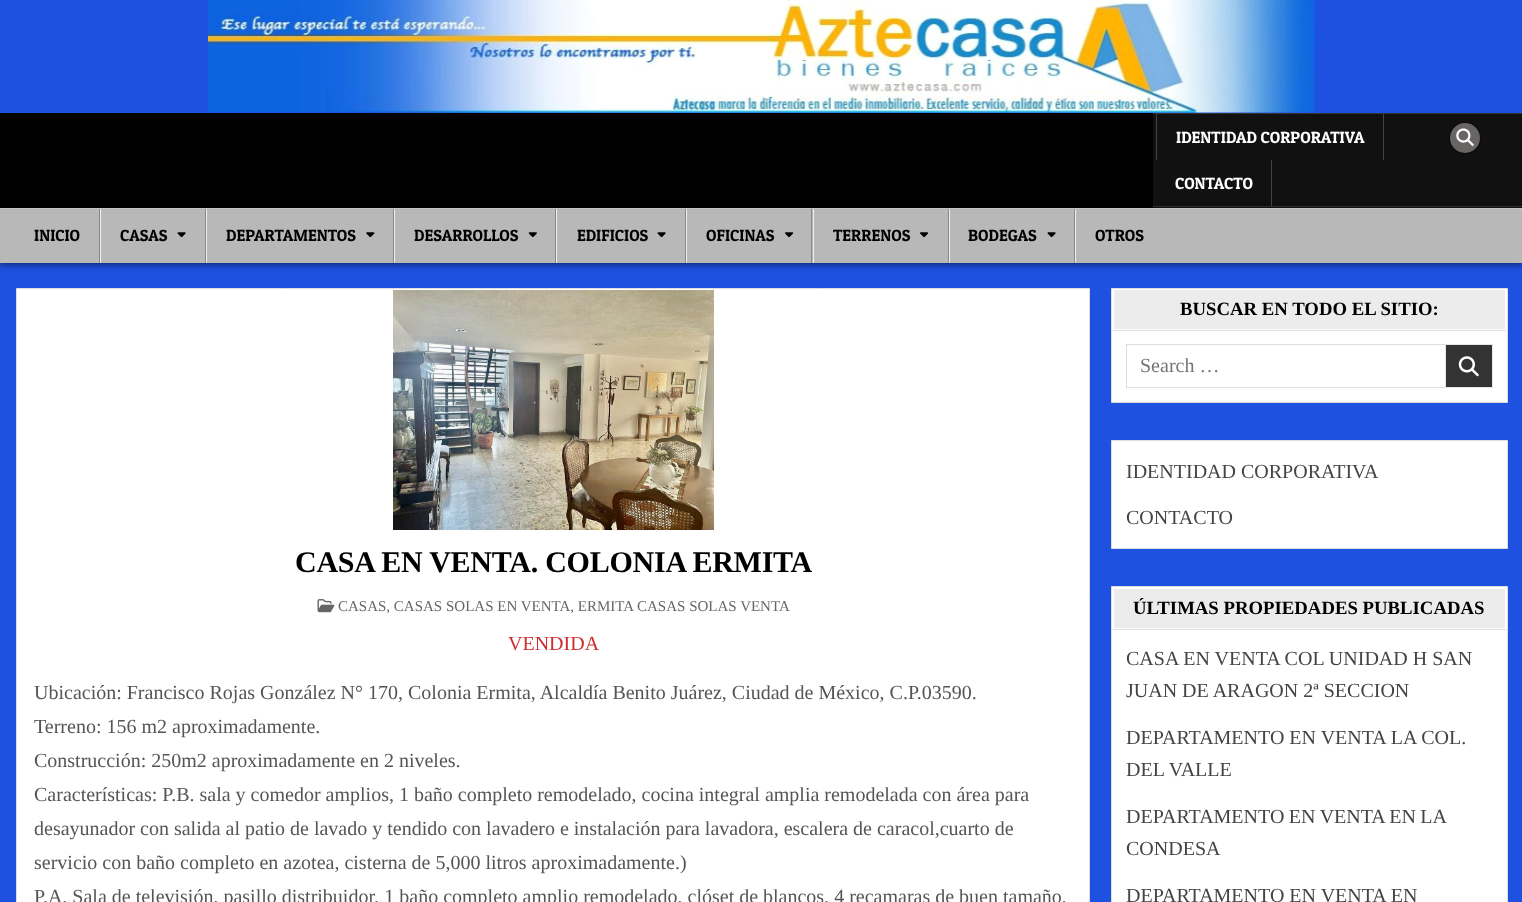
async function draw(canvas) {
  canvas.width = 1522;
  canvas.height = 902;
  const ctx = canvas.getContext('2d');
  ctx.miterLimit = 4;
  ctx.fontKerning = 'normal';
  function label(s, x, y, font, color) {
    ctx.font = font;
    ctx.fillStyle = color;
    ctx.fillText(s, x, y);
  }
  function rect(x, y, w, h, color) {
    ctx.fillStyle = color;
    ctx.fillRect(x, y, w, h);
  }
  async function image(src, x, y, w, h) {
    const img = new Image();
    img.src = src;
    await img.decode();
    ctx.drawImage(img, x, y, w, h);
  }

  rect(0, 0, 1522, 902, '#1f51e1');
  await image('assets/img1.png', 208, 0, 1107, 113);
  rect(0, 113, 1153, 95, '#000');
  rect(1153, 114, 369, 94, '#111');
  rect(1153, 113, 369, 1, '#333');
  rect(1153, 206, 369, 1, '#333');
  rect(1383, 114, 1, 46, '#444');
  rect(1156, 114, 1, 46, '#444');
  label('IDENTIDAD CORPORATIVA', 1176, 143, '16.25px Patua One', '#fff');
  rect(1271, 160, 1, 46, '#444');
  label('CONTACTO', 1175, 189, '16.25px Patua One', '#fff');
  ctx.fillStyle = '#000';
  ctx.filter = 'blur(1px)';
  ctx.beginPath();
  ctx.roundRect(1450, 123, 30, 30, 15);
  ctx.fill();
  ctx.filter = 'none';
  ctx.fillStyle = '#696565';
  ctx.beginPath();
  ctx.arc(1465, 138, 15, 0, 2 * Math.PI);
  ctx.fill();
  await image('assets/img2.png', 1456, 128, 18, 18);
  ctx.fillStyle = '#00000080';
  ctx.filter = 'blur(3px)';
  ctx.beginPath();
  ctx.rect(0, 210, 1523, 55);
  ctx.fill();
  ctx.filter = 'none';
  rect(0, 209, 1522, 54, '#b8b8b8');
  rect(0, 208, 1522, 1, '#c5c5c5');
  rect(99, 209, 1, 54, '#888');
  label('INICIO', 34, 241, '16.25px Patua One', '#000');
  rect(205, 209, 1, 54, '#888');
  rect(100, 209, 1, 54, '#eee');
  label('CASAS', 120, 241, '16.25px Patua One', '#000');
  await image('assets/img3.png', 177, 232, 9, 6);
  rect(393, 209, 1, 54, '#888');
  rect(206, 209, 1, 54, '#eee');
  label('DEPARTAMENTOS', 226, 241, '16.25px Patua One', '#000');
  await image('assets/img4.png', 366, 232, 9, 6);
  rect(555, 209, 1, 54, '#888');
  rect(394, 209, 1, 54, '#eee');
  label('DESARROLLOS', 414, 241, '16.25px Patua One', '#000');
  await image('assets/img5.png', 528, 232, 9, 6);
  rect(685, 209, 1, 54, '#888');
  rect(556, 209, 1, 54, '#eee');
  label('EDIFICIOS', 577, 241, '16.25px Patua One', '#000');
  await image('assets/img3.png', 657, 232, 9, 6);
  rect(811, 209, 1, 54, '#888');
  rect(686, 209, 1, 54, '#eee');
  label('OFICINAS', 706, 241, '16.25px Patua One', '#000');
  await image('assets/img6.png', 785, 232, 9, 6);
  rect(948, 209, 1, 54, '#888');
  rect(813, 209, 1, 54, '#eee');
  label('TERRENOS', 833, 241, '16.25px Patua One', '#000');
  await image('assets/img6.png', 920, 232, 9, 6);
  rect(1074, 209, 1, 54, '#888');
  rect(949, 209, 1, 54, '#eee');
  label('BODEGAS', 968, 241, '16.25px Patua One', '#000');
  await image('assets/img3.png', 1047, 232, 9, 6);
  rect(1075, 209, 1, 54, '#eee');
  label('OTROS', 1095, 241, '16.25px Patua One', '#000');
  ctx.fillStyle = '#fff';
  ctx.beginPath();
  ctx.rect(16.5, 288.5, 1073, 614);
  ctx.fill();
  ctx.strokeStyle = '#ddd';
  ctx.stroke();
  await image('assets/img7.png', 393, 290, 321, 240);
  ctx.letterSpacing = '-0.25px';
  label('CASA EN VENTA. COLONIA ERMITA', 295, 572, 'bold 30px Liberation Serif', '#000');
  await image('assets/img8.png', 317, 599, 18, 14);
  ctx.letterSpacing = '0px';
  label('CASAS, CASAS SOLAS EN VENTA, ERMITA CASAS SOLAS VENTA', 338, 611, '15px Liberation Serif', '#666');
  label('VENDIDA', 508, 650, '20px Liberation Serif', '#cf2e2e');
  label('Ubicación: Francisco Rojas González N° 170, Colonia Ermita, Alcaldía Benito Juárez, Ciudad de México, C.P.03590.', 34, 699, '20px Liberation Serif', '#555');
  label('Terreno: 156 m2 aproximadamente.', 34, 733, '20px Liberation Serif', '#555');
  label('Construcción: 250m2 aproximadamente en 2 niveles.', 34, 767, '20px Liberation Serif', '#555');
  label('Características: P.B. sala y comedor amplios, 1 baño completo remodelado, cocina integral amplia remodelada con área para', 34, 801, '20px Liberation Serif', '#555');
  label('desayunador con salida al patio de lavado y tendido con lavadero e instalación para lavadora, escalera de caracol,cuarto de', 34, 835, '20px Liberation Serif', '#555');
  label('servicio con baño completo en azotea, cisterna de 5,000 litros aproximadamente.)', 34, 869, '20px Liberation Serif', '#555');
  label('P.A. Sala de televisión, pasillo distribuidor, 1 baño completo amplio remodelado, clóset de blancos, 4 recamaras de buen tamaño,', 34, 903, '20px Liberation Serif', '#555');
  ctx.fillStyle = '#fff';
  ctx.beginPath();
  ctx.rect(1111.5, 288.5, 396, 114);
  ctx.fill();
  ctx.stroke();
  rect(1113, 330, 393, 1, '#ddd');
  rect(1114, 290, 391, 39, '#ececec');
  label('BUSCAR EN TODO EL SITIO:', 1180, 315, 'bold 18.75px Liberation Serif', '#000');
  ctx.strokeRect(1126.5, 344.5, 366, 43);
  label('Search …', 1140, 372, '20px Liberation Serif', '#757575');
  ctx.fillStyle = '#333';
  ctx.beginPath();
  ctx.rect(1445.5, 344.5, 47, 43);
  ctx.fill();
  ctx.strokeStyle = '#e6e6e6';
  ctx.stroke();
  await image('assets/img9.png', 1458, 356, 21, 21);
  ctx.fillStyle = '#fff';
  ctx.beginPath();
  ctx.rect(1111.5, 440.5, 396, 108);
  ctx.fill();
  ctx.strokeStyle = '#ddd';
  ctx.stroke();
  label('IDENTIDAD CORPORATIVA', 1126, 478, '20px Liberation Serif', '#444');
  label('CONTACTO', 1126, 524, '20px Liberation Serif', '#444');
  ctx.fillStyle = '#fff';
  ctx.beginPath();
  ctx.rect(1111.5, 586.5, 396, 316);
  ctx.fill();
  ctx.stroke();
  rect(1113, 629, 393, 1, '#ddd');
  rect(1114, 589, 391, 39, '#ececec');
  label('ÚLTIMAS PROPIEDADES PUBLICADAS', 1133, 614, 'bold 18.75px Liberation Serif', '#000');
  label('CASA EN VENTA COL UNIDAD H SAN', 1126, 665, '20px Liberation Serif', '#444');
  label('JUAN DE ARAGON 2ª SECCION', 1126, 697, '20px Liberation Serif', '#444');
  label('DEPARTAMENTO EN VENTA LA COL.', 1126, 744, '20px Liberation Serif', '#444');
  label('DEL VALLE', 1126, 776, '20px Liberation Serif', '#444');
  ctx.wordSpacing = '-0.5px';
  label('DEPARTAMENTO EN VENTA EN LA', 1126, 823, '20px Liberation Serif', '#444');
  ctx.wordSpacing = '0px';
  label('CONDESA', 1126, 855, '20px Liberation Serif', '#444');
  label('DEPARTAMENTO EN VENTA EN', 1126, 902, '20px Liberation Serif', '#444');
}

draw(document.querySelector('canvas'));
